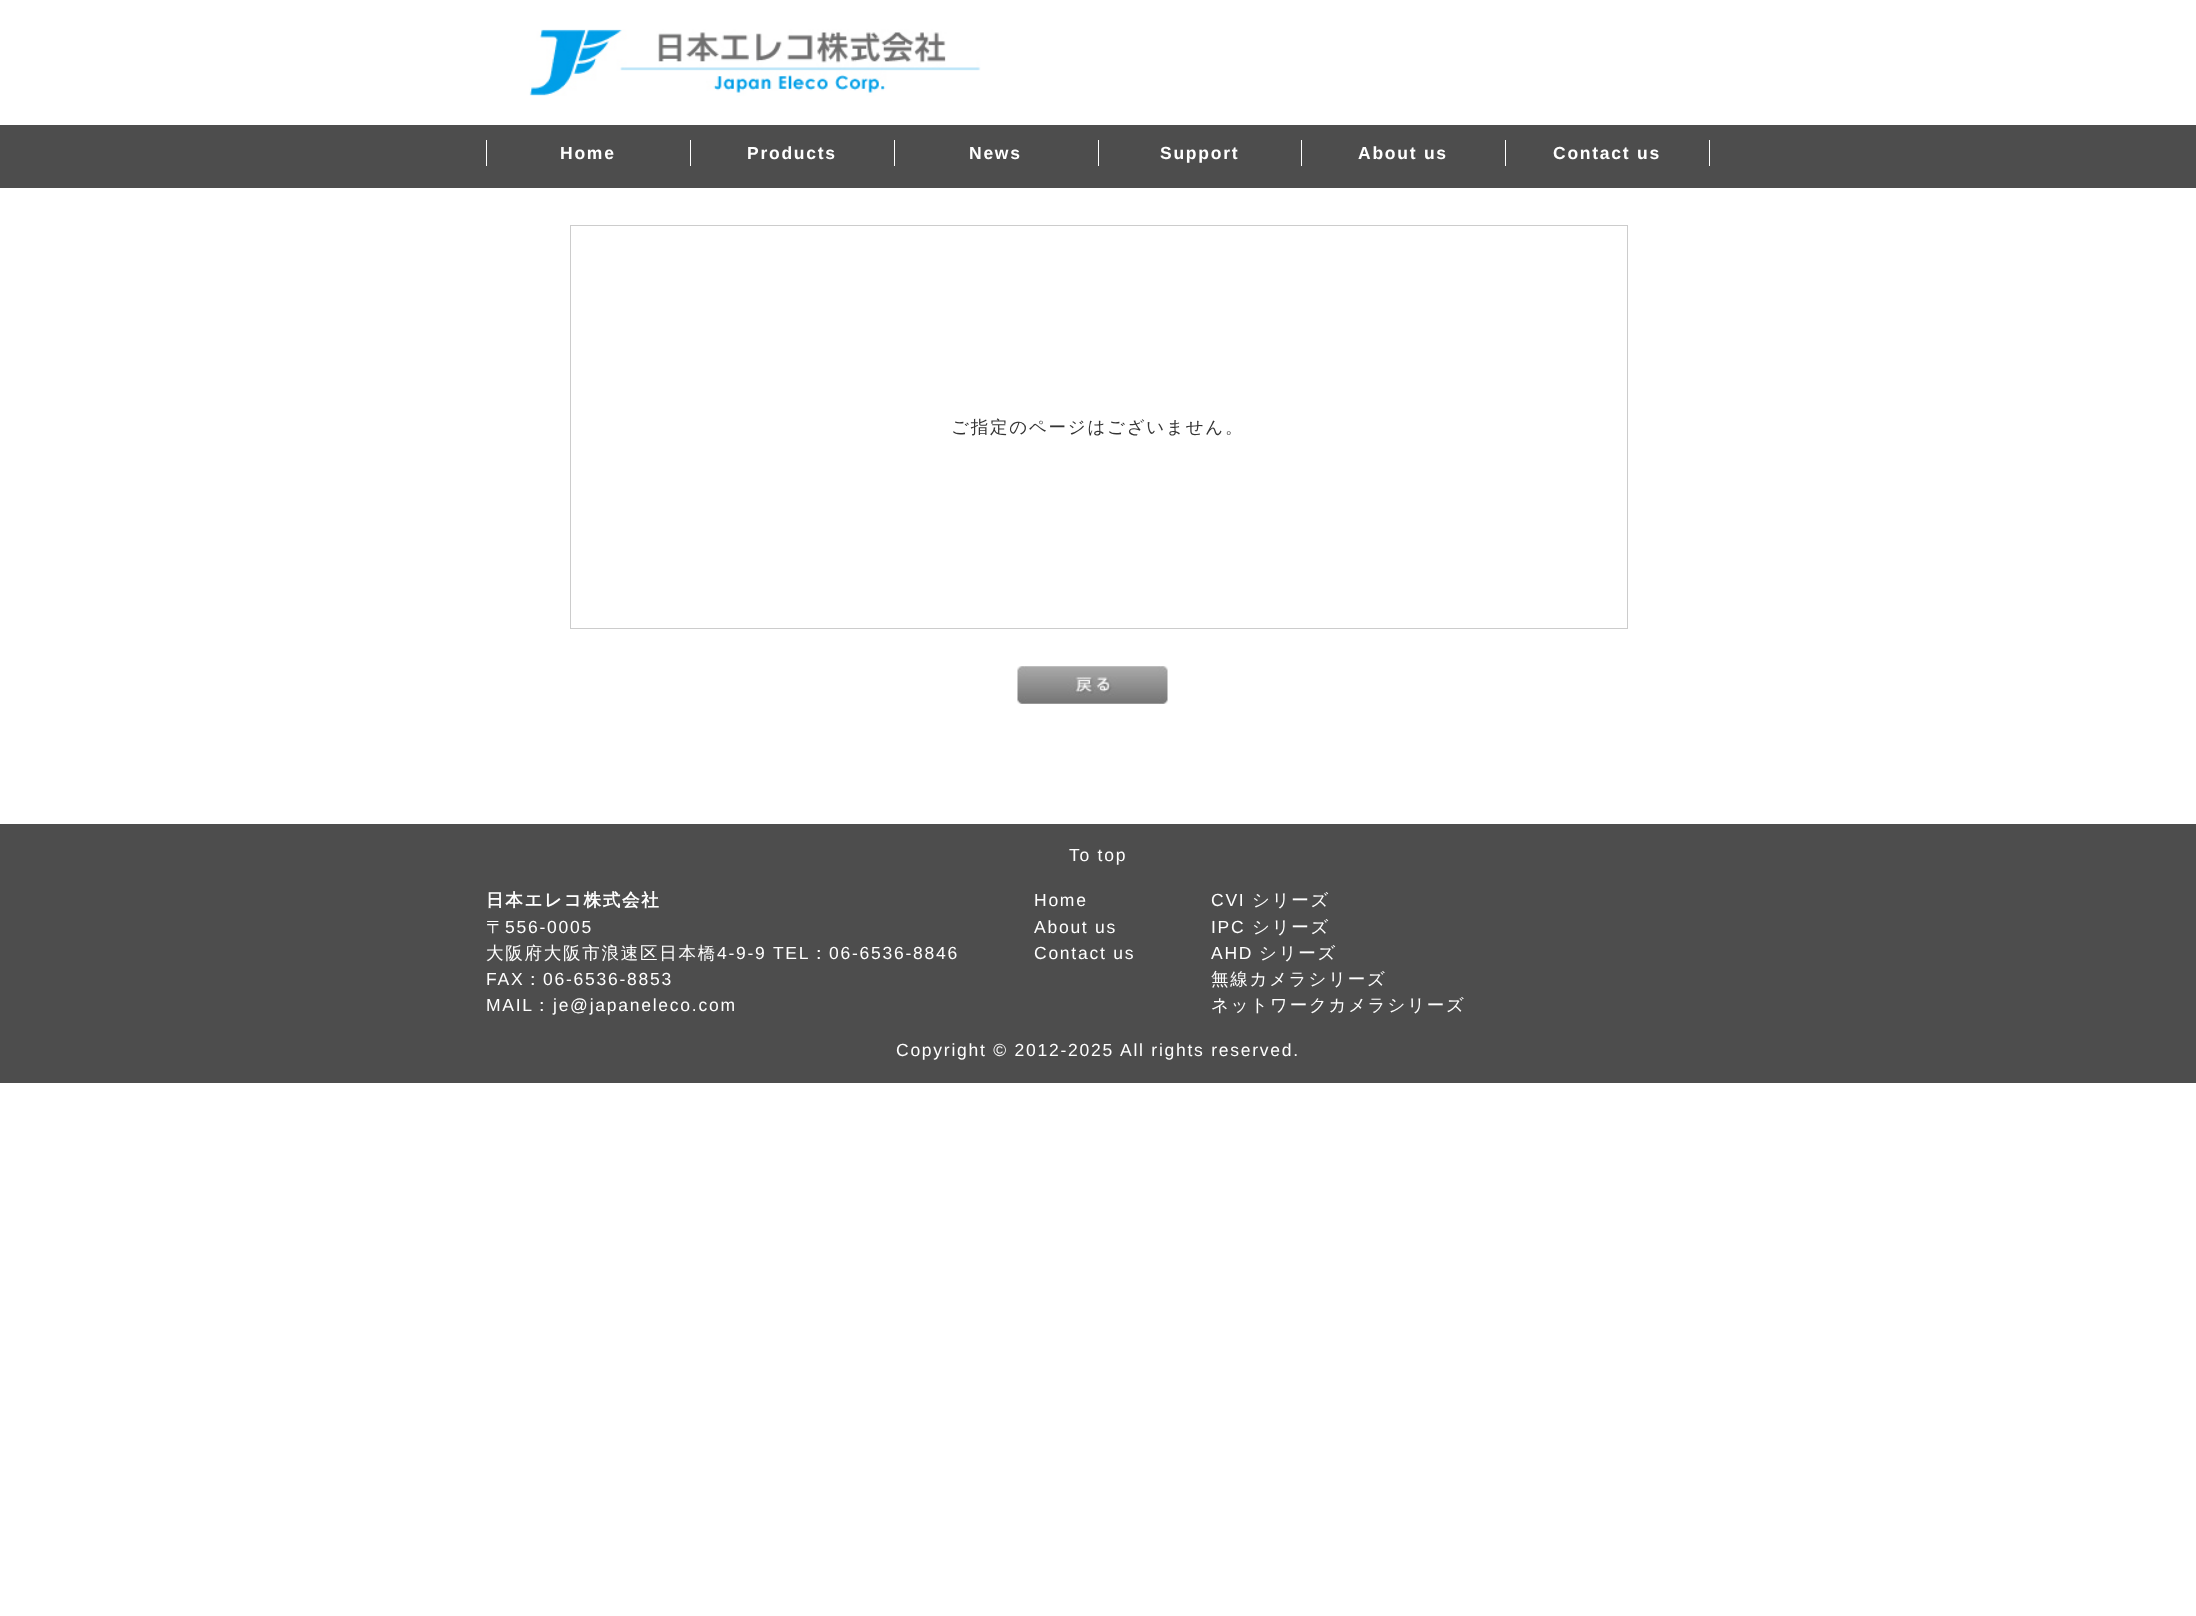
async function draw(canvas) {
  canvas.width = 2196;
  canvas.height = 1616;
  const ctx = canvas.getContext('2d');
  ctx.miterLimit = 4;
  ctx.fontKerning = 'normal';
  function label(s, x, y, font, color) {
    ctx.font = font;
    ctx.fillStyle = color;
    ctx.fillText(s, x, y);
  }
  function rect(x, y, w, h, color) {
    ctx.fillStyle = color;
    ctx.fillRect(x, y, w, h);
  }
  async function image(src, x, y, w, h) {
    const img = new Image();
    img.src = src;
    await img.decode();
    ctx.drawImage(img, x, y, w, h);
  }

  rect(0, 0, 2196, 1616, '#fff');
  await image('assets/img1.png', 529, 29, 452, 67);
  rect(0, 125, 2196, 63, '#4d4d4d');
  rect(690, 140, 1, 26, '#fff');
  rect(486, 140, 1, 26, '#fff');
  ctx.letterSpacing = '1.75px';
  label('Home', 560, 159, 'bold 17.5px Liberation Sans', '#fff');
  rect(894, 140, 1, 26, '#fff');
  label('Products', 747, 159, 'bold 17.5px Liberation Sans', '#fff');
  rect(1098, 140, 1, 26, '#fff');
  label('News', 969, 159, 'bold 17.5px Liberation Sans', '#fff');
  rect(1301, 140, 1, 26, '#fff');
  label('Support', 1160, 159, 'bold 17.5px Liberation Sans', '#fff');
  rect(1505, 140, 1, 26, '#fff');
  label('About us', 1358, 159, 'bold 17.5px Liberation Sans', '#fff');
  rect(1709, 140, 1, 26, '#fff');
  label('Contact us', 1553, 159, 'bold 17.5px Liberation Sans', '#fff');
  ctx.strokeStyle = '#ccc';
  ctx.strokeRect(570.5, 225.5, 1057, 403);
  label('ご指定のページはございません。', 951, 433, '500 17.5px WenQuanYi Zen Hei', '#343434');
  await image('assets/img2.png', 1017, 666, 151, 38);
  rect(0, 824, 2196, 259, '#4d4d4d');
  label('To top', 1069, 861, '17.5px Liberation Sans', '#fff');
  label('日本エレコ株式会社', 486, 906, 'bold 17.5px WenQuanYi Zen Hei', '#fff');
  label('〒', 486, 933, '500 17.5px WenQuanYi Zen Hei', '#fff');
  label('556-0005', 505, 933, '17.5px Liberation Sans', '#fff');
  label('大阪府大阪市浪速区日本橋', 486, 959, '500 17.5px WenQuanYi Zen Hei', '#fff');
  label('4-9-9 TEL', 717, 959, '17.5px Liberation Sans', '#fff');
  label('：', 810, 959, '500 17.5px WenQuanYi Zen Hei', '#fff');
  label('06-6536-8846', 829, 959, '17.5px Liberation Sans', '#fff');
  label('FAX', 486, 985, '17.5px Liberation Sans', '#fff');
  label('：', 524, 985, '500 17.5px WenQuanYi Zen Hei', '#fff');
  label('06-6536-8853', 543, 985, '17.5px Liberation Sans', '#fff');
  label('MAIL', 486, 1011, '17.5px Liberation Sans', '#fff');
  label('：', 533, 1011, '500 17.5px WenQuanYi Zen Hei', '#fff');
  label('je@japaneleco.com', 553, 1011, '17.5px Liberation Sans', '#fff');
  label('Home', 1034, 906, '17.5px Liberation Sans', '#fff');
  label('About us', 1034, 933, '17.5px Liberation Sans', '#fff');
  label('Contact us', 1034, 959, '17.5px Liberation Sans', '#fff');
  label('CVI', 1211, 906, '17.5px Liberation Sans', '#fff');
  label('シリーズ', 1252, 906, '500 17.5px WenQuanYi Zen Hei', '#fff');
  label('IPC', 1211, 933, '17.5px Liberation Sans', '#fff');
  label('シリーズ', 1252, 933, '500 17.5px WenQuanYi Zen Hei', '#fff');
  label('AHD', 1211, 959, '17.5px Liberation Sans', '#fff');
  label('シリーズ', 1259, 959, '500 17.5px WenQuanYi Zen Hei', '#fff');
  label('無線カメラシリーズ', 1211, 985, '500 17.5px WenQuanYi Zen Hei', '#fff');
  label('ネットワークカメラシリーズ', 1211, 1011, '500 17.5px WenQuanYi Zen Hei', '#fff');
  label('Copyright © 2012-2025', 896, 1056, '17.5px Liberation Sans', '#fff');
  label('All rights reserved.', 1120, 1056, '17.5px Liberation Sans', '#fff');
}

draw(document.querySelector('canvas'));
